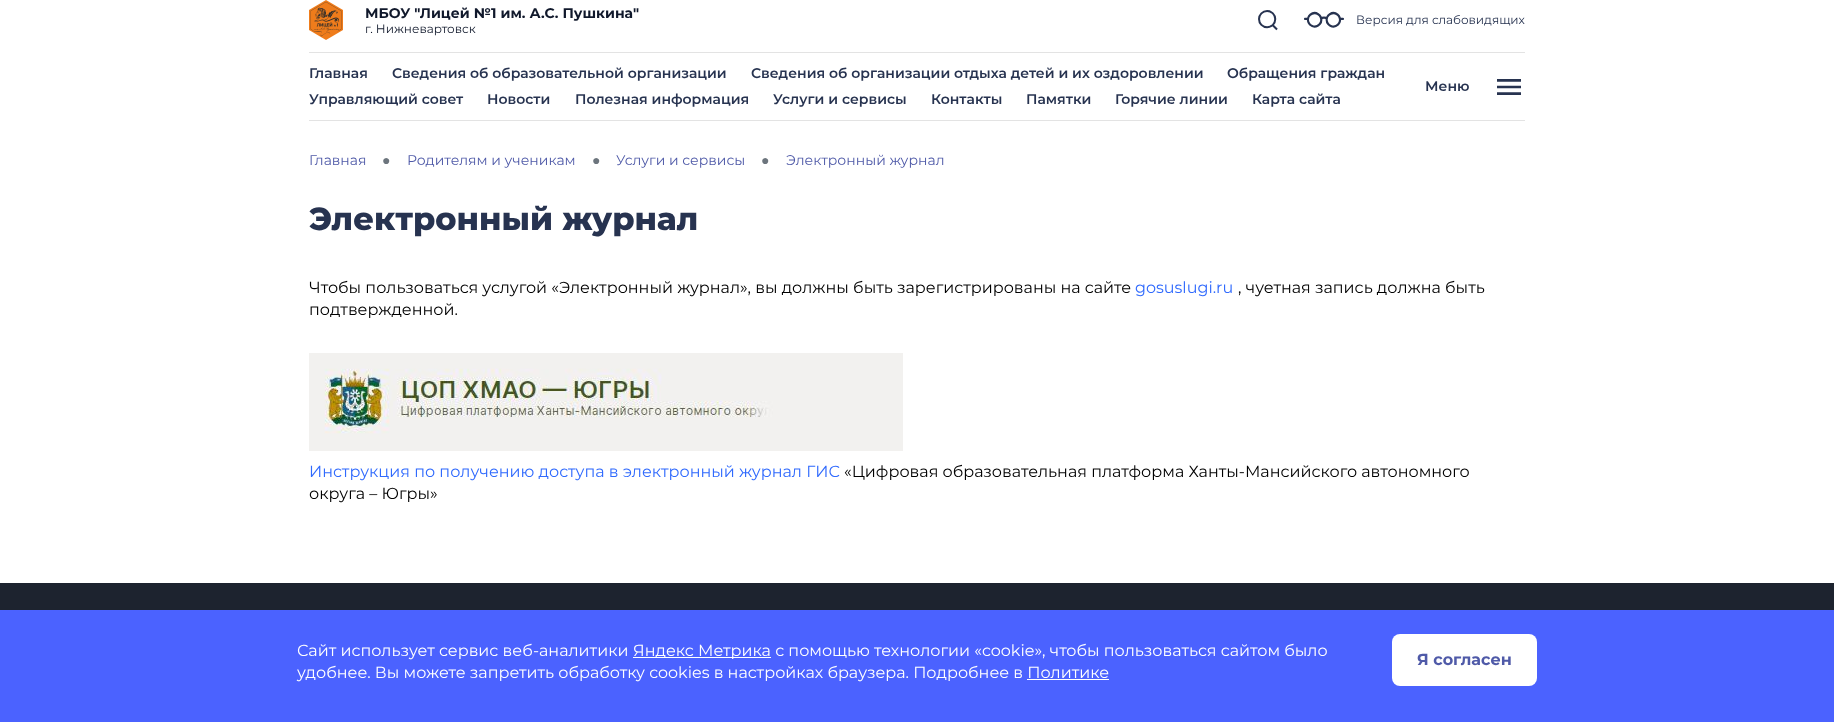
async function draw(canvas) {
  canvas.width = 1834;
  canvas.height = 722;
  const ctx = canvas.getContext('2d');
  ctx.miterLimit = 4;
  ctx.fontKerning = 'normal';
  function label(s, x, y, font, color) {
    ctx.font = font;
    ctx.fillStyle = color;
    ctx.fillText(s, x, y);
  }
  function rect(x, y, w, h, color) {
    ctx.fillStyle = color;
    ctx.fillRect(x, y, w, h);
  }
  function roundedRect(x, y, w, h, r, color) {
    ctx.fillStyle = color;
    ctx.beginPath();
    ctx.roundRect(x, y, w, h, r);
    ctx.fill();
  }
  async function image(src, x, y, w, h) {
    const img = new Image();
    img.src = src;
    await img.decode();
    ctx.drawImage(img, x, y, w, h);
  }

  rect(0, 0, 1834, 722, '#fff');
  rect(309, 52, 1216, 1, '#e3e3e3');
  await image('assets/img1.png', 309, 0, 34, 40);
  label('МБОУ "Лицей №1 им. А.С. Пушкина"', 365, 18, 'bold 14px Montserrat', '#10182b');
  label('г. Нижневартовск', 365, 33, '12px Montserrat', '#10182b');
  await image('assets/img2.png', 1258, 10, 20, 21);
  await image('assets/img3.png', 1304, 11, 40, 17);
  label('Версия для слабовидящих', 1356, 24, '12px Montserrat', '#273350');
  rect(309, 120, 1216, 1, '#e3e3e3');
  label('Главная', 309, 78, '600 14px Montserrat', '#273350');
  label('Сведения об образовательной организации', 392, 78, '600 14px Montserrat', '#273350');
  label('Сведения об организации отдыха детей и их оздоровлении', 751, 78, '600 14px Montserrat', '#273350');
  label('Обращения граждан', 1227, 78, '600 14px Montserrat', '#273350');
  label('Управляющий совет', 309, 104, '600 14px Montserrat', '#273350');
  label('Новости', 487, 104, '600 14px Montserrat', '#273350');
  label('Полезная информация', 575, 104, '600 14px Montserrat', '#273350');
  label('Услуги и сервисы', 773, 104, '600 14px Montserrat', '#273350');
  label('Контакты', 931, 104, '600 14px Montserrat', '#273350');
  label('Памятки', 1026, 104, '600 14px Montserrat', '#273350');
  label('Горячие линии', 1115, 104, '600 14px Montserrat', '#273350');
  label('Карта сайта', 1252, 104, '600 14px Montserrat', '#273350');
  label('Меню', 1425, 91, '600 14px Montserrat', '#273350');
  await image('assets/img4.png', 1497, 79, 24, 16);
  label('Главная', 309, 165, '14px Montserrat', '#4f5aa8');
  label('●', 382, 165, '14px Liberation Serif', '#6c757d');
  label('Родителям и ученикам', 407, 165, '14px Montserrat', '#4f5aa8');
  label('●', 592, 165, '14px Liberation Serif', '#6c757d');
  label('Услуги и сервисы', 616, 165, '14px Montserrat', '#4f5aa8');
  label('●', 761, 165, '14px Liberation Serif', '#6c757d');
  label('Электронный журнал', 786, 165, '14px Montserrat', '#4f5aa8');
  label('Электронный журнал', 309, 230, '800 32px Montserrat', '#273350');
  label('Чтобы пользоваться услугой «Электронный журнал», вы должны быть зарегистрированы на сайте', 309, 293, '16px Montserrat', '#000');
  label('gosuslugi.ru', 1135, 293, '16px Montserrat', '#306afd');
  label(', чуетная запись должна быть', 1238, 293, '16px Montserrat', '#000');
  label('подтвержденной.', 309, 315, '16px Montserrat', '#000');
  await image('assets/img5.png', 309, 353, 594, 98);
  label('Инструкция по получению доступа в электронный журнал ГИС', 309, 477, '16px Montserrat', '#306afd');
  label('«Цифровая образовательная платформа Ханты-Мансийского автономного', 844, 477, '16px Montserrat', '#000');
  label('округа – Югры»', 309, 499, '16px Montserrat', '#000');
  rect(0, 583, 1834, 27, '#1d232f');
  rect(0, 610, 1834, 112, '#4b62ff');
  label('Сайт использует сервис веб-аналитики', 297, 656, '16px Montserrat', '#fff');
  rect(633, 657, 138, 1, '#fff');
  label('Яндекс Метрика с помощью технологии «cookie», чтобы пользоваться сайтом было', 633, 656, '16px Montserrat', '#fff');
  label('удобнее. Вы можете запретить обработку cookies в настройках браузера. Подробнее в Политике', 297, 678, '16px Montserrat', '#fff');
  rect(1027, 679, 82, 1, '#fff');
  roundedRect(1392, 634, 145, 52, 8, '#fff');
  label('Я согласен', 1417, 665, 'bold 16px Montserrat', '#4f5aa8');
}

draw(document.querySelector('canvas'));
